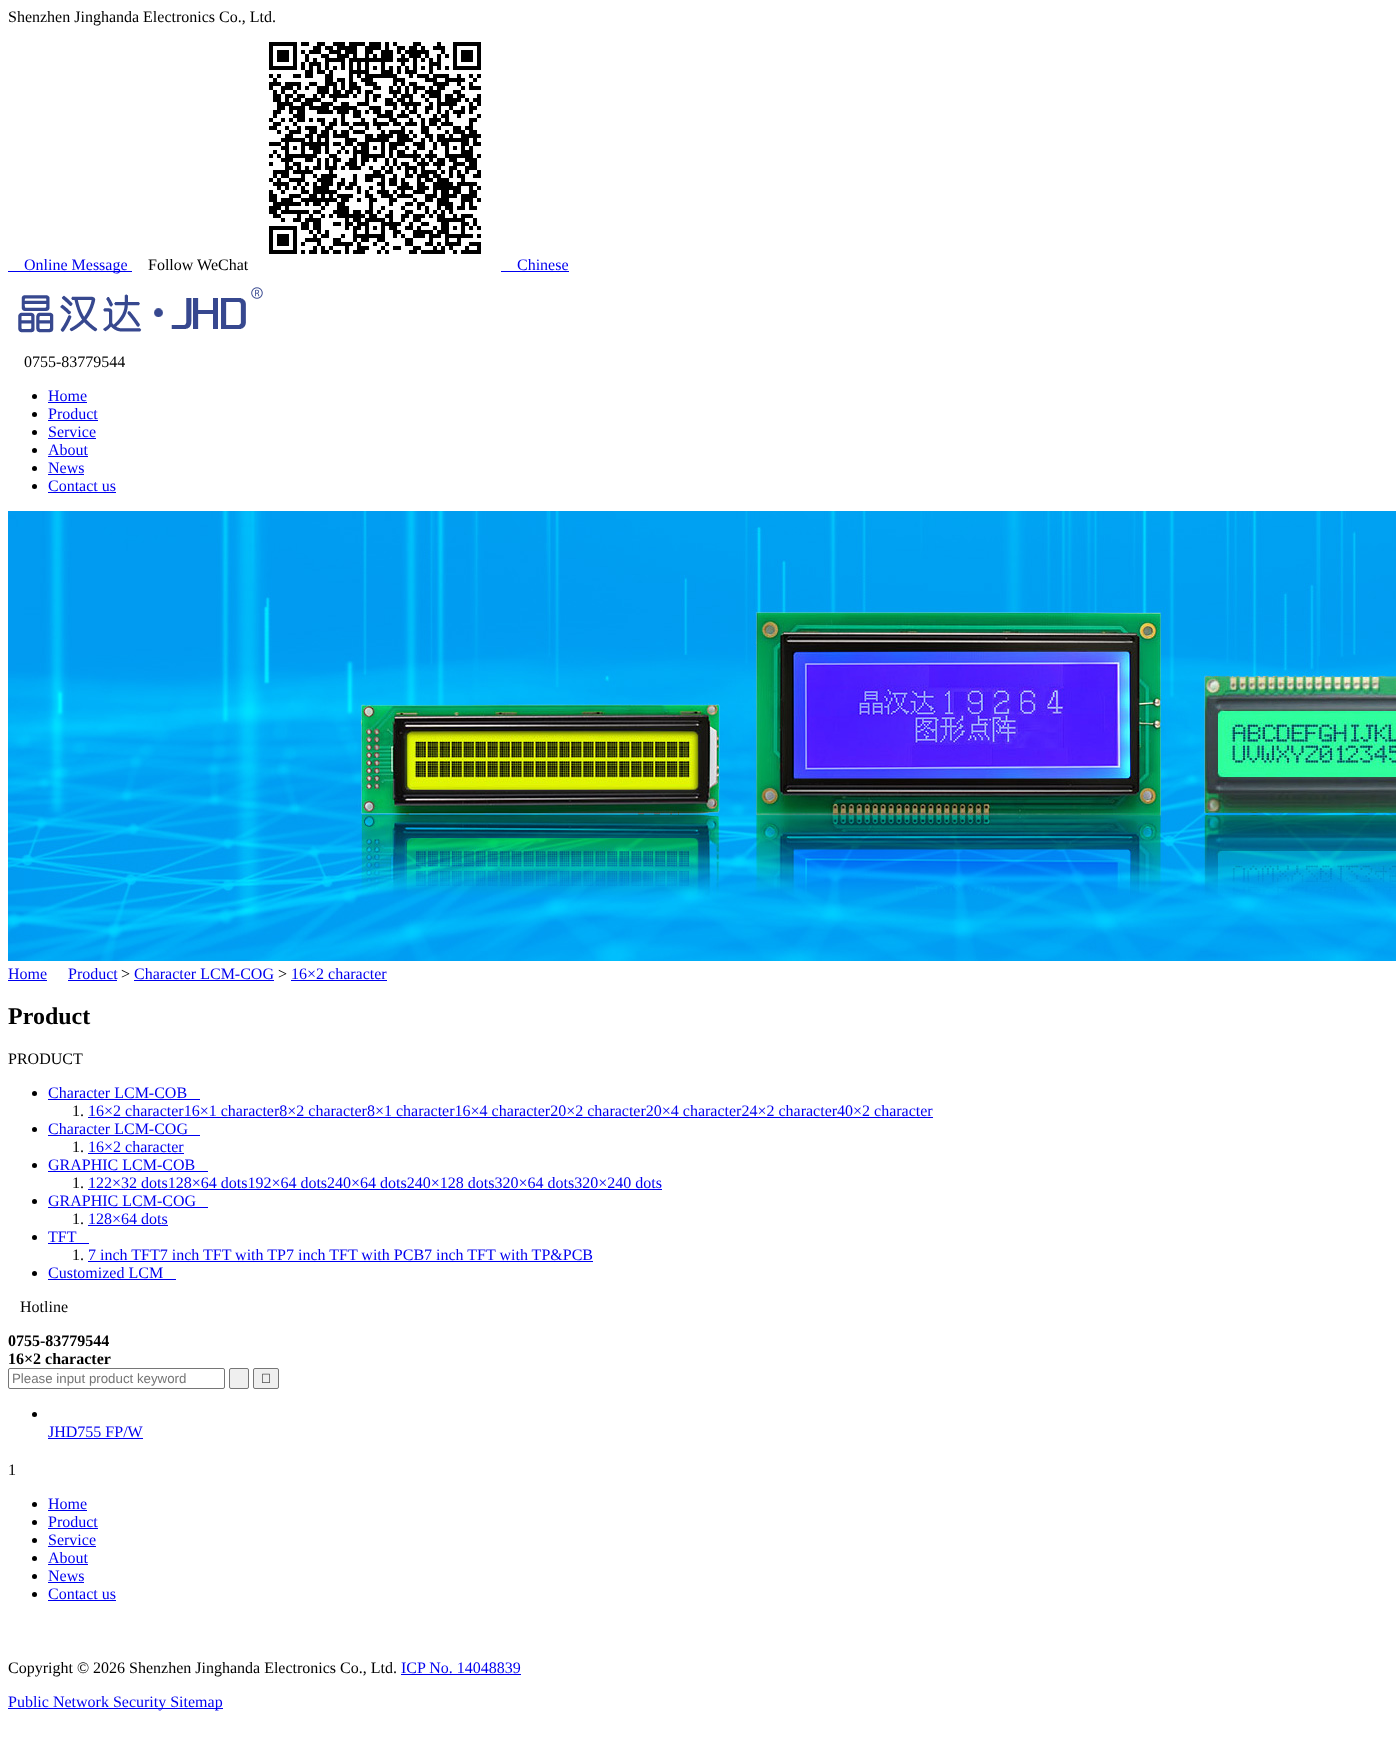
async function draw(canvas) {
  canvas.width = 1396;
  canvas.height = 1761;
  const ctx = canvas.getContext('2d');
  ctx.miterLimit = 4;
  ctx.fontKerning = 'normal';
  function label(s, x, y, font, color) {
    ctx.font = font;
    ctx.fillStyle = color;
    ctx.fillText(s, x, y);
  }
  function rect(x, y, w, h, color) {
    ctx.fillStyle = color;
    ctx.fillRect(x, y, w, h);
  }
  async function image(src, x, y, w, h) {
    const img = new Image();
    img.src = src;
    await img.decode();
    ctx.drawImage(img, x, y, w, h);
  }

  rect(0, 0, 1396, 1761, '#fff');
  label('Shenzhen Jinghanda Electronics Co., Ltd.', 8, 22, '16px Liberation Serif', '#000');
  await image('assets/img1.png', 269, 42, 212, 212);
  rect(8, 271, 124, 1, '#00e');
  label('Online Message', 24, 270, '16px Liberation Serif', '#00e');
  label('Follow WeChat', 148, 270, '16px Liberation Serif', '#000');
  label('Chinese', 517, 270, '16px Liberation Serif', '#00e');
  rect(501, 271, 68, 1, '#00e');
  await image('assets/img2.png', 18, 287, 245, 46);
  label('0755-83779544', 24, 367, '16px Liberation Serif', '#000');
  ctx.beginPath();
  ctx.arc(34.5, 396.5, 2.5, 0, 2 * Math.PI);
  ctx.fill();
  label('Home', 48, 401, '16px Liberation Serif', '#00e');
  rect(48, 402, 39, 1, '#00e');
  ctx.fillStyle = '#000';
  ctx.beginPath();
  ctx.arc(34.5, 414.5, 2.5, 0, 2 * Math.PI);
  ctx.fill();
  label('Product', 48, 419, '16px Liberation Serif', '#00e');
  rect(48, 420, 50, 1, '#00e');
  ctx.fillStyle = '#000';
  ctx.beginPath();
  ctx.arc(34.5, 432.5, 2.5, 0, 2 * Math.PI);
  ctx.fill();
  label('Service', 48, 437, '16px Liberation Serif', '#00e');
  rect(48, 438, 48, 1, '#00e');
  ctx.fillStyle = '#000';
  ctx.beginPath();
  ctx.arc(34.5, 450.5, 2.5, 0, 2 * Math.PI);
  ctx.fill();
  label('About', 48, 455, '16px Liberation Serif', '#00e');
  rect(48, 456, 40, 1, '#00e');
  ctx.fillStyle = '#000';
  ctx.beginPath();
  ctx.arc(34.5, 468.5, 2.5, 0, 2 * Math.PI);
  ctx.fill();
  label('News', 48, 473, '16px Liberation Serif', '#00e');
  rect(48, 474, 36, 1, '#00e');
  ctx.fillStyle = '#000';
  ctx.beginPath();
  ctx.arc(34.5, 486.5, 2.5, 0, 2 * Math.PI);
  ctx.fill();
  label('Contact us', 48, 491, '16px Liberation Serif', '#00e');
  rect(48, 492, 68, 1, '#00e');
  await image('assets/img3.png', 8, 511, 1388, 450);
  label('Home', 8, 979, '16px Liberation Serif', '#00e');
  rect(8, 980, 39, 1, '#00e');
  label('Product', 68, 979, '16px Liberation Serif', '#00e');
  rect(68, 980, 49, 1, '#00e');
  label('>', 121, 979, '16px Liberation Serif', '#000');
  label('Character LCM-COG', 134, 979, '16px Liberation Serif', '#00e');
  rect(134, 980, 140, 1, '#00e');
  label('>', 278, 979, '16px Liberation Serif', '#000');
  label('16×2 character', 291, 979, '16px Liberation Serif', '#00e');
  rect(291, 980, 96, 1, '#00e');
  label('Product', 8, 1024, 'bold 24px Liberation Serif', '#000');
  label('PRODUCT', 8, 1064, '16px Liberation Serif', '#000');
  ctx.beginPath();
  ctx.arc(34.5, 1093.5, 2.5, 0, 2 * Math.PI);
  ctx.fill();
  label('Character LCM-COB', 48, 1098, '16px Liberation Serif', '#00e');
  rect(48, 1099, 152, 1, '#00e');
  label('1.', 72, 1116, '16px Liberation Serif', '#000');
  label('16×2 character16×1 character8×2 character8×1 character16×4 character20×2 character20×4 character24×2 character40×2 character', 88, 1116, '16px Liberation Serif', '#00e');
  rect(88, 1117, 845, 1, '#00e');
  ctx.fillStyle = '#000';
  ctx.beginPath();
  ctx.arc(34.5, 1129.5, 2.5, 0, 2 * Math.PI);
  ctx.fill();
  label('Character LCM-COG', 48, 1134, '16px Liberation Serif', '#00e');
  rect(48, 1135, 152, 1, '#00e');
  label('1.', 72, 1152, '16px Liberation Serif', '#000');
  label('16×2 character', 88, 1152, '16px Liberation Serif', '#00e');
  rect(88, 1153, 96, 1, '#00e');
  ctx.fillStyle = '#000';
  ctx.beginPath();
  ctx.arc(34.5, 1165.5, 2.5, 0, 2 * Math.PI);
  ctx.fill();
  label('GRAPHIC LCM-COB', 48, 1170, '16px Liberation Serif', '#00e');
  rect(48, 1171, 160, 1, '#00e');
  label('1.', 72, 1188, '16px Liberation Serif', '#000');
  label('122×32 dots128×64 dots192×64 dots240×64 dots240×128 dots320×64 dots320×240 dots', 88, 1188, '16px Liberation Serif', '#00e');
  rect(88, 1189, 574, 1, '#00e');
  ctx.fillStyle = '#000';
  ctx.beginPath();
  ctx.arc(34.5, 1201.5, 2.5, 0, 2 * Math.PI);
  ctx.fill();
  label('GRAPHIC LCM-COG', 48, 1206, '16px Liberation Serif', '#00e');
  rect(48, 1207, 160, 1, '#00e');
  label('1.', 72, 1224, '16px Liberation Serif', '#000');
  label('128×64 dots', 88, 1224, '16px Liberation Serif', '#00e');
  rect(88, 1225, 80, 1, '#00e');
  ctx.fillStyle = '#000';
  ctx.beginPath();
  ctx.arc(34.5, 1237.5, 2.5, 0, 2 * Math.PI);
  ctx.fill();
  label('TFT', 48, 1242, '16px Liberation Serif', '#00e');
  rect(48, 1243, 41, 1, '#00e');
  label('1.', 72, 1260, '16px Liberation Serif', '#000');
  label('7 inch TFT7 inch TFT with TP7 inch TFT with PCB7 inch TFT with TP&PCB', 88, 1260, '16px Liberation Serif', '#00e');
  rect(88, 1261, 505, 1, '#00e');
  ctx.fillStyle = '#000';
  ctx.beginPath();
  ctx.arc(34.5, 1273.5, 2.5, 0, 2 * Math.PI);
  ctx.fill();
  label('Customized LCM', 48, 1278, '16px Liberation Serif', '#00e');
  rect(48, 1279, 128, 1, '#00e');
  label('Hotline', 20, 1312, '16px Liberation Serif', '#000');
  label('0755-83779544', 8, 1346, 'bold 16px Liberation Serif', '#000');
  label('16×2 character', 8, 1364, 'bold 16px Liberation Serif', '#000');
  ctx.beginPath();
  ctx.roundRect(8.5, 1368.5, 216, 20, 1.5);
  ctx.strokeStyle = '#767676';
  ctx.stroke();
  label('Please input product keyword', 12, 1383, '13.3px Liberation Sans', '#757575');
  ctx.fillStyle = '#efefef';
  ctx.beginPath();
  ctx.roundRect(229.5, 1368.5, 19, 20, 1.5);
  ctx.fill();
  ctx.stroke();
  ctx.beginPath();
  ctx.roundRect(253.5, 1368.5, 25, 20, 1.5);
  ctx.fill();
  ctx.stroke();
  await image('assets/img4.png', 262, 1373, 8, 10);
  ctx.fillStyle = '#000';
  ctx.beginPath();
  ctx.arc(34.5, 1414.5, 2.5, 0, 2 * Math.PI);
  ctx.fill();
  label('JHD755 FP/W', 48, 1437, '16px Liberation Serif', '#00e');
  rect(48, 1438, 95, 1, '#00e');
  label('1', 8, 1475, '16px Liberation Serif', '#000');
  ctx.beginPath();
  ctx.arc(34.5, 1504.5, 2.5, 0, 2 * Math.PI);
  ctx.fill();
  label('Home', 48, 1509, '16px Liberation Serif', '#00e');
  rect(48, 1510, 39, 1, '#00e');
  ctx.fillStyle = '#000';
  ctx.beginPath();
  ctx.arc(34.5, 1522.5, 2.5, 0, 2 * Math.PI);
  ctx.fill();
  label('Product', 48, 1527, '16px Liberation Serif', '#00e');
  rect(48, 1528, 50, 1, '#00e');
  ctx.fillStyle = '#000';
  ctx.beginPath();
  ctx.arc(34.5, 1540.5, 2.5, 0, 2 * Math.PI);
  ctx.fill();
  label('Service', 48, 1545, '16px Liberation Serif', '#00e');
  rect(48, 1546, 48, 1, '#00e');
  ctx.fillStyle = '#000';
  ctx.beginPath();
  ctx.arc(34.5, 1558.5, 2.5, 0, 2 * Math.PI);
  ctx.fill();
  label('About', 48, 1563, '16px Liberation Serif', '#00e');
  rect(48, 1564, 40, 1, '#00e');
  ctx.fillStyle = '#000';
  ctx.beginPath();
  ctx.arc(34.5, 1576.5, 2.5, 0, 2 * Math.PI);
  ctx.fill();
  label('News', 48, 1581, '16px Liberation Serif', '#00e');
  rect(48, 1582, 36, 1, '#00e');
  ctx.fillStyle = '#000';
  ctx.beginPath();
  ctx.arc(34.5, 1594.5, 2.5, 0, 2 * Math.PI);
  ctx.fill();
  label('Contact us', 48, 1599, '16px Liberation Serif', '#00e');
  rect(48, 1600, 68, 1, '#00e');
  label('Copyright © 2026 Shenzhen Jinghanda Electronics Co., Ltd.', 8, 1673, '16px Liberation Serif', '#000');
  label('ICP No. 14048839', 401, 1673, '16px Liberation Serif', '#00e');
  rect(401, 1674, 120, 1, '#00e');
  rect(8, 1708, 215, 1, '#00e');
  label('Public Network Security Sitemap', 8, 1707, '16px Liberation Serif', '#00e');
}

draw(document.querySelector('canvas'));
